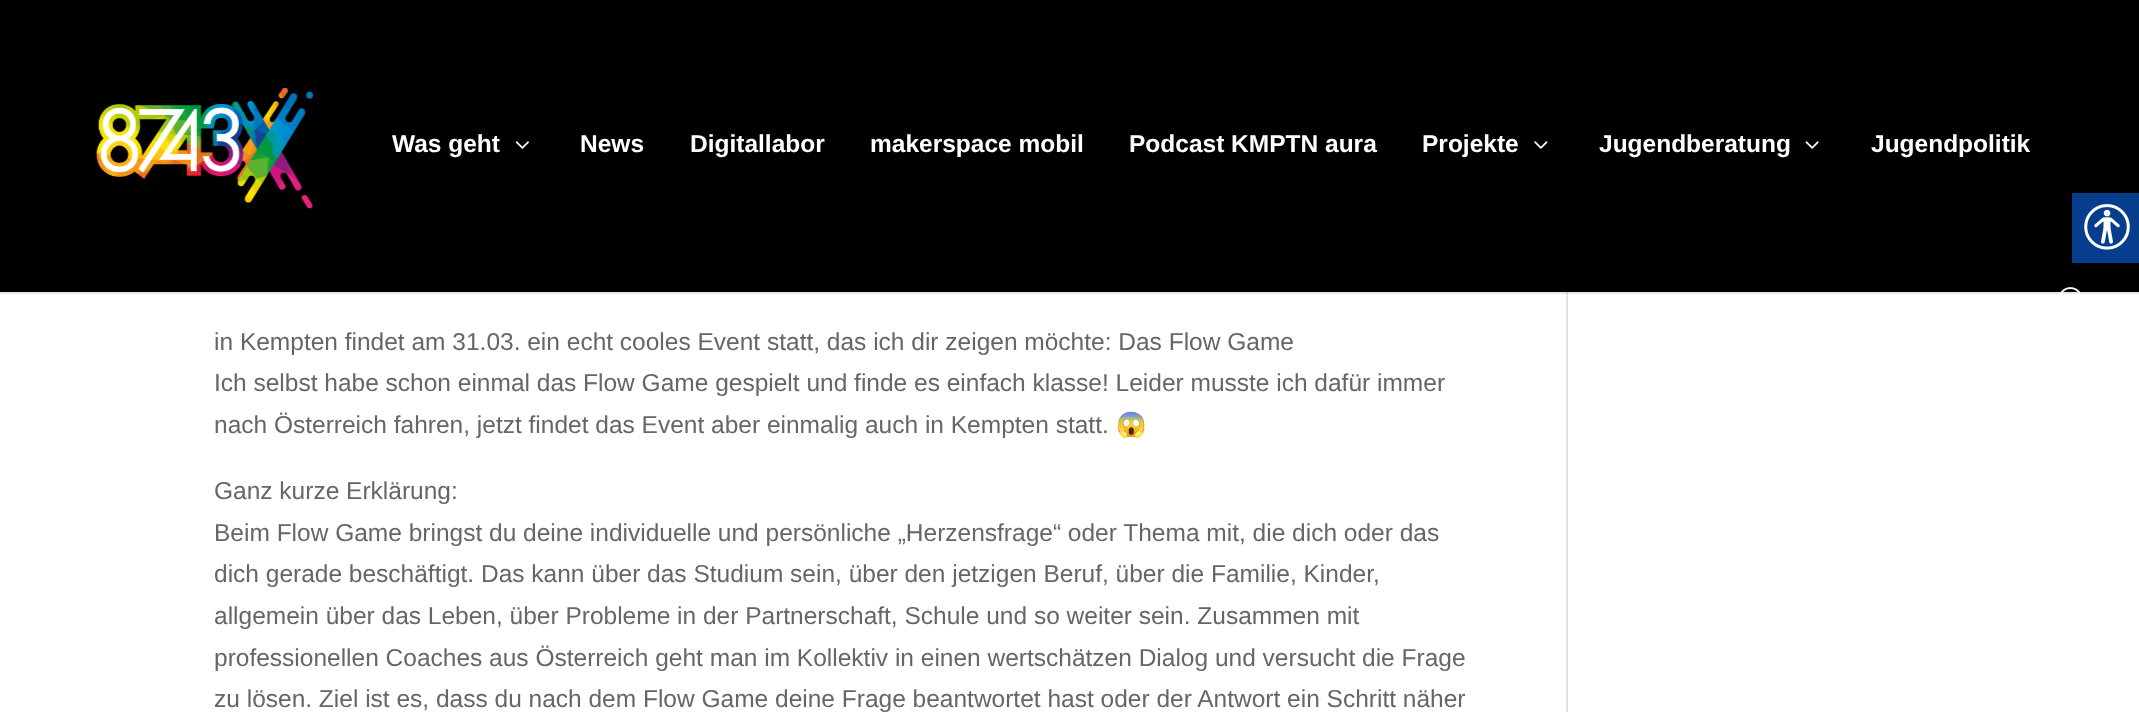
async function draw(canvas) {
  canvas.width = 2139;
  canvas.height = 712;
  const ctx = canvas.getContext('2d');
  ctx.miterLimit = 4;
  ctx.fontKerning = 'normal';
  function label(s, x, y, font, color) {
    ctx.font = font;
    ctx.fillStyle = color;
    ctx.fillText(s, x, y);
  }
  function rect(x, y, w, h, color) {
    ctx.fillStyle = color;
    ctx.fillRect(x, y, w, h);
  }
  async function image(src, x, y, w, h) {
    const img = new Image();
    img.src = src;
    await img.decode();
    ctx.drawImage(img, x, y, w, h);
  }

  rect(0, 0, 2139, 712, '#fff');
  rect(0, 0, 2139, 292, '#000');
  await image('assets/img1.png', 95, 87, 219, 122);
  label('Was geht', 392, 152, 'bold 24.5px Liberation Sans', '#fff');
  await image('assets/img2.png', 515, 141, 14, 8);
  label('News', 580, 152, 'bold 24.5px Liberation Sans', '#fff');
  label('Digitallabor', 690, 152, 'bold 24.5px Liberation Sans', '#fff');
  label('makerspace mobil', 870, 152, 'bold 24.5px Liberation Sans', '#fff');
  label('Podcast KMPTN aura', 1129, 152, 'bold 24.5px Liberation Sans', '#fff');
  label('Projekte', 1422, 152, 'bold 24.5px Liberation Sans', '#fff');
  await image('assets/img3.png', 1534, 141, 14, 8);
  label('Jugendberatung', 1599, 152, 'bold 24.5px Liberation Sans', '#fff');
  await image('assets/img4.png', 1805, 141, 14, 8);
  label('Jugendpolitik', 1871, 152, 'bold 24.5px Liberation Sans', '#fff');
  rect(0, 292, 2139, 2, '#e6e6e6');
  await image('assets/img5.png', 2059, 287, 22, 7);
  label('in Kempten findet am 31.03. ein echt cooles Event statt, das ich dir zeigen möchte: Das Flow Game', 214, 350, '24.5px Liberation Sans', '#666');
  label('Ich selbst habe schon einmal das Flow Game gespielt und finde es einfach klasse! Leider musste ich dafür immer', 214, 391, '24.5px Liberation Sans', '#666');
  label('nach Österreich fahren, jetzt findet das Event aber einmalig auch in Kempten statt.', 214, 433, '24.5px Liberation Sans', '#666');
  label('😱', 1116, 433, '24.5px Noto Color Emoji', '#666');
  label('Ganz kurze Erklärung:', 214, 499, '24.5px Liberation Sans', '#666');
  label('Beim Flow Game bringst du deine individuelle und persönliche „Herzensfrage“ oder Thema mit, die dich oder das', 214, 541, '24.5px Liberation Sans', '#666');
  label('dich gerade beschäftigt. Das kann über das Studium sein, über den jetzigen Beruf, über die Familie, Kinder,', 214, 582, '24.5px Liberation Sans', '#666');
  label('allgemein über das Leben, über Probleme in der Partnerschaft, Schule und so weiter sein. Zusammen mit', 214, 624, '24.5px Liberation Sans', '#666');
  label('professionellen Coaches aus Österreich geht man im Kollektiv in einen wertschätzen Dialog und versucht die Frage', 214, 666, '24.5px Liberation Sans', '#666');
  label('zu lösen. Ziel ist es, dass du nach dem Flow Game deine Frage beantwortet hast oder der Antwort ein Schritt näher', 214, 707, '24.5px Liberation Sans', '#666');
  rect(1566, 294, 2, 418, '#e2e2e2');
  rect(1566, 292, 2, 2, '#cbcbcb');
  rect(2072, 193, 67, 70, '#063d8d');
  await image('assets/img6.png', 2084, 204, 46, 46);
}

draw(document.querySelector('canvas'));
